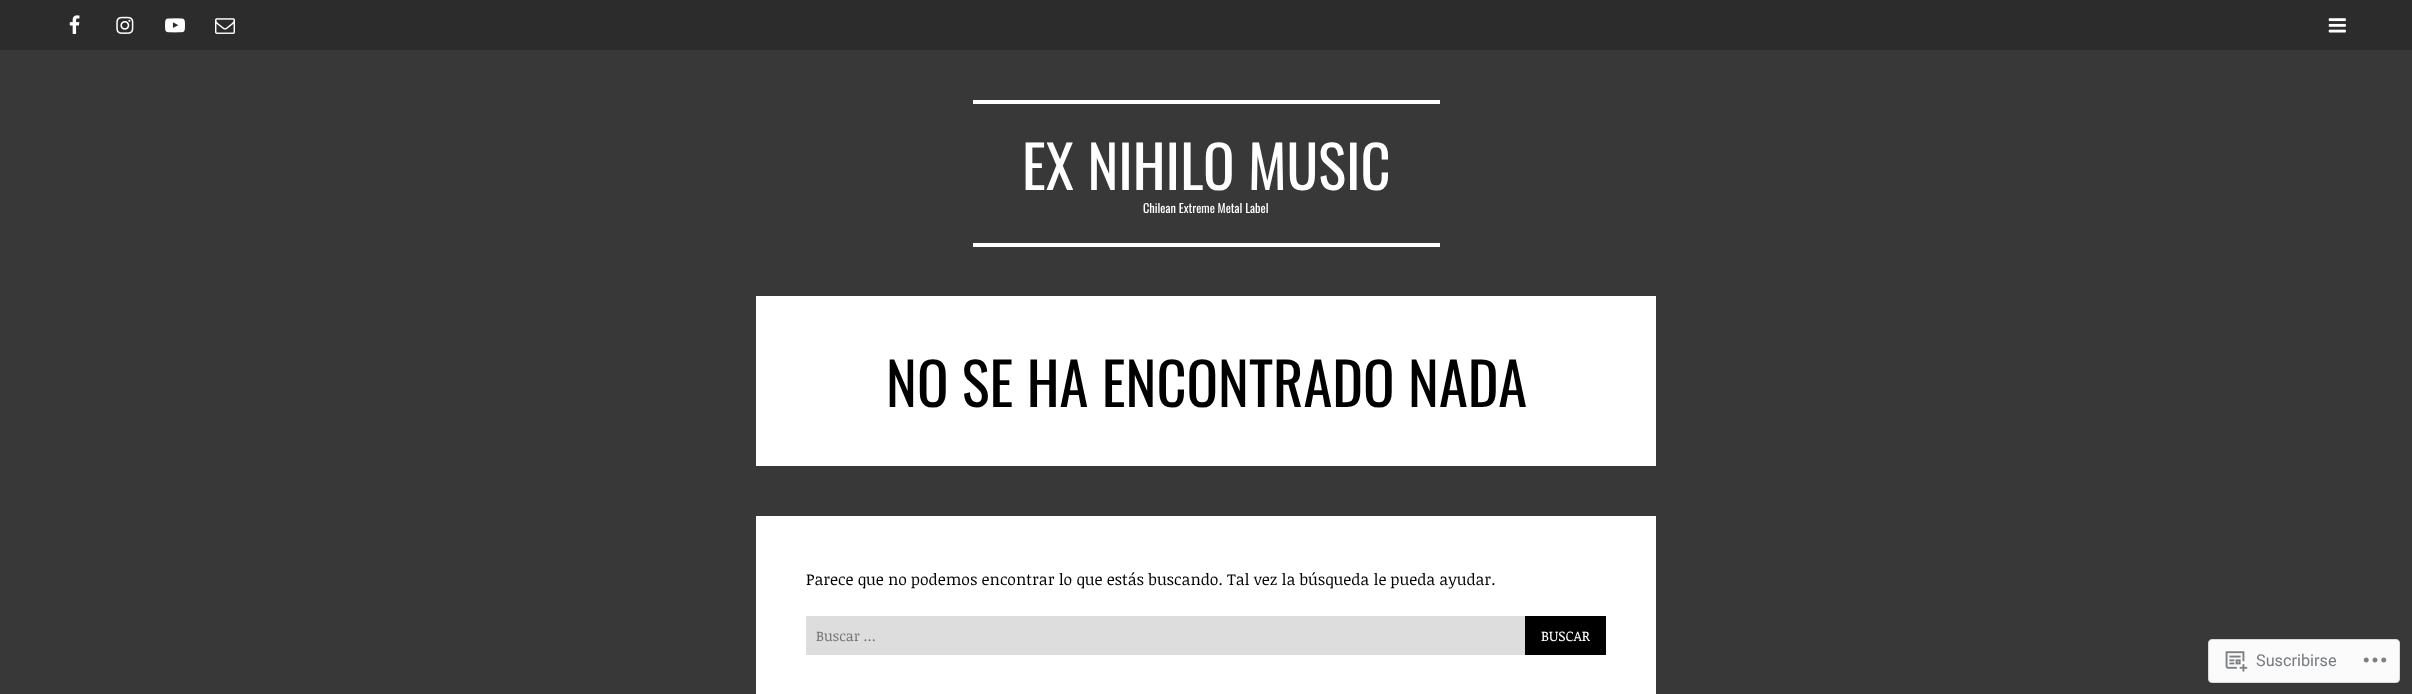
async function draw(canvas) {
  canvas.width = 2412;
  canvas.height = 694;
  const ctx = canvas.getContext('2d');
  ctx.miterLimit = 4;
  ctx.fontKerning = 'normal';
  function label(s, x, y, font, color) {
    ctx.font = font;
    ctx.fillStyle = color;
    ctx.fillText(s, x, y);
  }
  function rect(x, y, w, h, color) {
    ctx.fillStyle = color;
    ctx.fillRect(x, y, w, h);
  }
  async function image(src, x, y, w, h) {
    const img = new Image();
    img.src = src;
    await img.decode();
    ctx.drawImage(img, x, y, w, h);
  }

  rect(0, 0, 2412, 694, '#383838');
  rect(0, 0, 2412, 50, '#2c2c2c');
  await image('assets/img1.png', 69, 15, 11, 19);
  await image('assets/img2.png', 116, 16, 18, 18);
  await image('assets/img3.png', 165, 18, 20, 15);
  await image('assets/img4.png', 215, 18, 20, 16);
  await image('assets/img5.png', 2328, 18, 18, 15);
  rect(973, 100, 467, 4, '#fff');
  rect(973, 243, 467, 4, '#fff');
  label('EX NIHILO MUSIC', 1022, 190, '58.5px Oswald', '#fff');
  label('Chilean Extreme Metal Label', 1143, 213, '12.25px Oswald', '#fff');
  rect(756, 296, 900, 170, '#fff');
  label('NO SE HA ENCONTRADO NADA', 886, 407, '58.5px Oswald', '#000');
  rect(756, 516, 900, 178, '#fff');
  label('Parece que no podemos encontrar lo que estás buscando. Tal vez la búsqueda le pueda ayudar.', 806, 585, '15.75px Noticia Text', '#000');
  rect(806, 616, 719, 39, '#ddd');
  label('Buscar …', 816, 641, '14px Noticia Text', '#757575');
  rect(1525, 616, 81, 39, '#000');
  label('BUSCAR', 1541, 641, '14px Noticia Text', '#fff');
  ctx.fillStyle = '#fbfbfb';
  ctx.beginPath();
  ctx.roundRect(2208.5, 639.5, 191, 43, 3.5);
  ctx.fill();
  ctx.strokeStyle = '#d9d9db';
  ctx.stroke();
  await image('assets/img6.png', 2225, 651, 23, 21);
  label('Suscribirse', 2256, 666, '16.25px Roboto', '#777b81');
  await image('assets/img7.png', 2363, 657, 24, 6);
}

draw(document.querySelector('canvas'));
